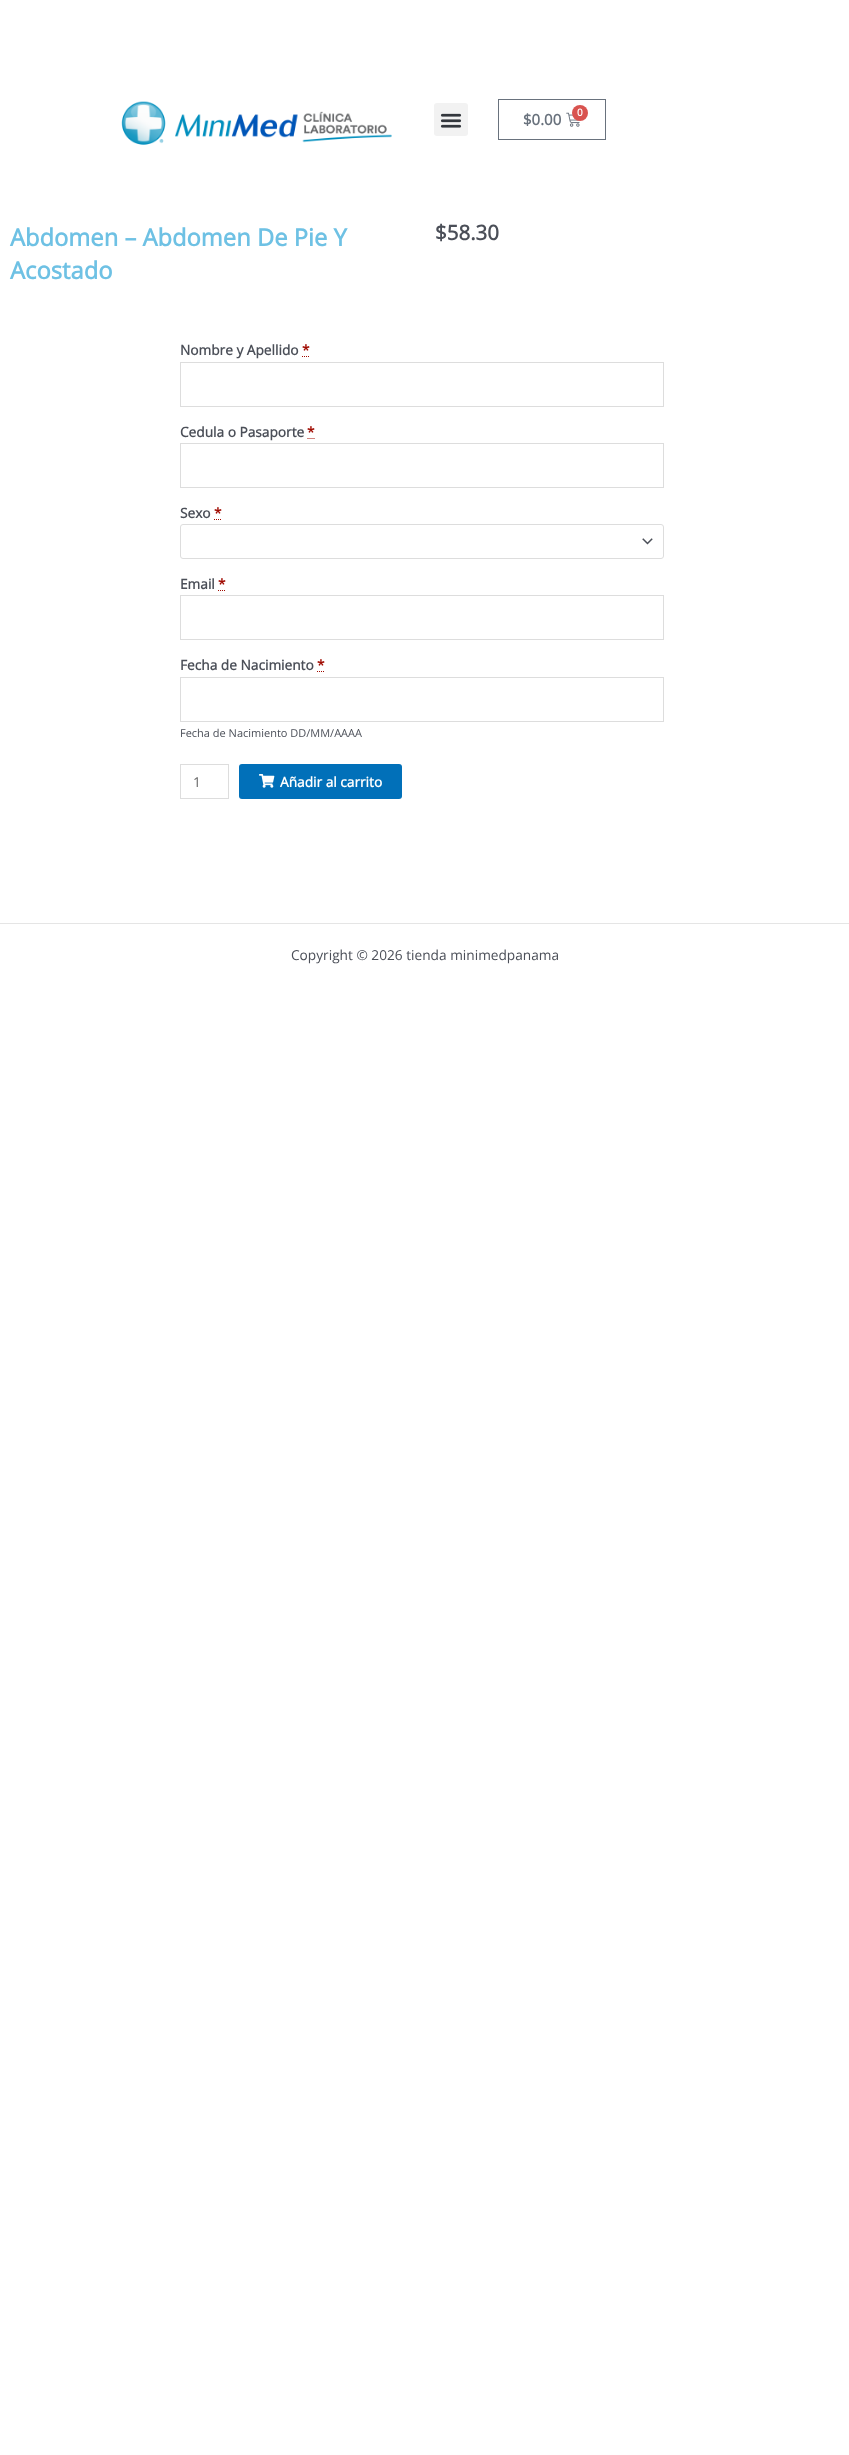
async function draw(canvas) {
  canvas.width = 849;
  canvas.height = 2455;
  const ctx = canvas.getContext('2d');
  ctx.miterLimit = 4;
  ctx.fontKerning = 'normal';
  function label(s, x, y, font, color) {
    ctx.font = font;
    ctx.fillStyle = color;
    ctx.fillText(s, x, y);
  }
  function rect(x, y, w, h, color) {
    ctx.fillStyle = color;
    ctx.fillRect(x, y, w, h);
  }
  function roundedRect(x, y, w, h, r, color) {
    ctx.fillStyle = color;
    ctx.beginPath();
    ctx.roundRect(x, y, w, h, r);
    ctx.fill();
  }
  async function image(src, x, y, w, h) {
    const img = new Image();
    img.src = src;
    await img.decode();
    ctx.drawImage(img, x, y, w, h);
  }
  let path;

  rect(0, 0, 849, 2455, '#fff');
  await image('assets/img1.png', 121, 101, 271, 44);
  roundedRect(434, 103, 34, 33, 3, '#f2f2f2');
  await image('assets/img2.png', 440, 113, 22, 15);
  ctx.strokeStyle = '#69727d';
  ctx.strokeRect(498.5, 99.5, 107, 40);
  label('$0.00', 523, 125, 'bold 15px Open Sans', '#69727d');
  await image('assets/img3.png', 566, 112, 14, 15);
  ctx.fillStyle = '#d9534f';
  ctx.beginPath();
  ctx.arc(580, 113, 8, 0, 2 * Math.PI);
  ctx.fill();
  label('0', 577, 116, 'bold 10px Open Sans', '#fff');
  label('Abdomen – Abdomen De Pie Y', 10, 246, 'bold 23.75px Open Sans', '#6ec1e4');
  label('Acostado', 10, 279, 'bold 23.75px Open Sans', '#6ec1e4');
  label('$58.30', 435, 240, 'bold 20.5px Open Sans', '#4b4f58');
  label('Nombre y Apellido', 180, 355, 'bold 13.7px Open Sans', '#4b4f58');
  path = new Path2D('M302 356.5H309.5');
  ctx.strokeStyle = '#a00a00';
  ctx.setLineDash([1, 1]);
  ctx.stroke(path);
  label('*', 302, 355, 'bold 13.7px Open Sans', '#a00a00');
  ctx.strokeStyle = '#ddd';
  ctx.setLineDash([]);
  ctx.strokeRect(180.5, 362.5, 483, 44);
  label('Cedula o Pasaporte', 180, 437, 'bold 13.7px Open Sans', '#4b4f58');
  path = new Path2D('M307.5 438.5H315');
  ctx.strokeStyle = '#a00a00';
  ctx.setLineDash([1, 1]);
  ctx.stroke(path);
  label('*', 307, 437, 'bold 13.7px Open Sans', '#a00a00');
  ctx.strokeStyle = '#ddd';
  ctx.setLineDash([]);
  ctx.strokeRect(180.5, 443.5, 483, 44);
  label('Sexo', 180, 518, 'bold 13.7px Open Sans', '#4b4f58');
  path = new Path2D('M214 519.5H221.5');
  ctx.strokeStyle = '#a00a00';
  ctx.setLineDash([1, 1]);
  ctx.stroke(path);
  label('*', 214, 518, 'bold 13.7px Open Sans', '#a00a00');
  await image('assets/img4.png', 642, 538, 11, 7);
  ctx.beginPath();
  ctx.roundRect(180.5, 524.5, 483, 34, 2.5);
  ctx.strokeStyle = '#ddd';
  ctx.setLineDash([]);
  ctx.stroke();
  label('Email', 180, 589, 'bold 13.7px Open Sans', '#4b4f58');
  path = new Path2D('M218 590.5H225.5');
  ctx.strokeStyle = '#a00a00';
  ctx.setLineDash([1, 1]);
  ctx.stroke(path);
  label('*', 218, 589, 'bold 13.7px Open Sans', '#a00a00');
  ctx.strokeStyle = '#ddd';
  ctx.setLineDash([]);
  ctx.strokeRect(180.5, 595.5, 483, 44);
  label('Fecha de Nacimiento', 180, 670, 'bold 13.7px Open Sans', '#4b4f58');
  path = new Path2D('M317 671.5H324.5');
  ctx.strokeStyle = '#a00a00';
  ctx.setLineDash([1, 1]);
  ctx.stroke(path);
  label('*', 317, 670, 'bold 13.7px Open Sans', '#a00a00');
  ctx.strokeStyle = '#ddd';
  ctx.setLineDash([]);
  ctx.strokeRect(180.5, 677.5, 483, 44);
  label('Fecha de Nacimiento DD/MM/AAAA', 180, 737, '11px Open Sans', '#4b4f58');
  ctx.strokeRect(180.5, 764.5, 48, 34);
  label('1', 193, 787, '13.7px Open Sans', '#666');
  roundedRect(239, 764, 163, 35, 3, '#0170b9');
  await image('assets/img5.png', 259, 774, 16, 14);
  label('Añadir al carrito', 280, 787, 'bold 13.7px Open Sans', '#fff');
  rect(0, 923, 849, 1, '#e5e5e5');
  label('Copyright © 2026 tienda minimedpanama', 291, 960, '13.7px Open Sans', '#4b4f58');
}

draw(document.querySelector('canvas'));
